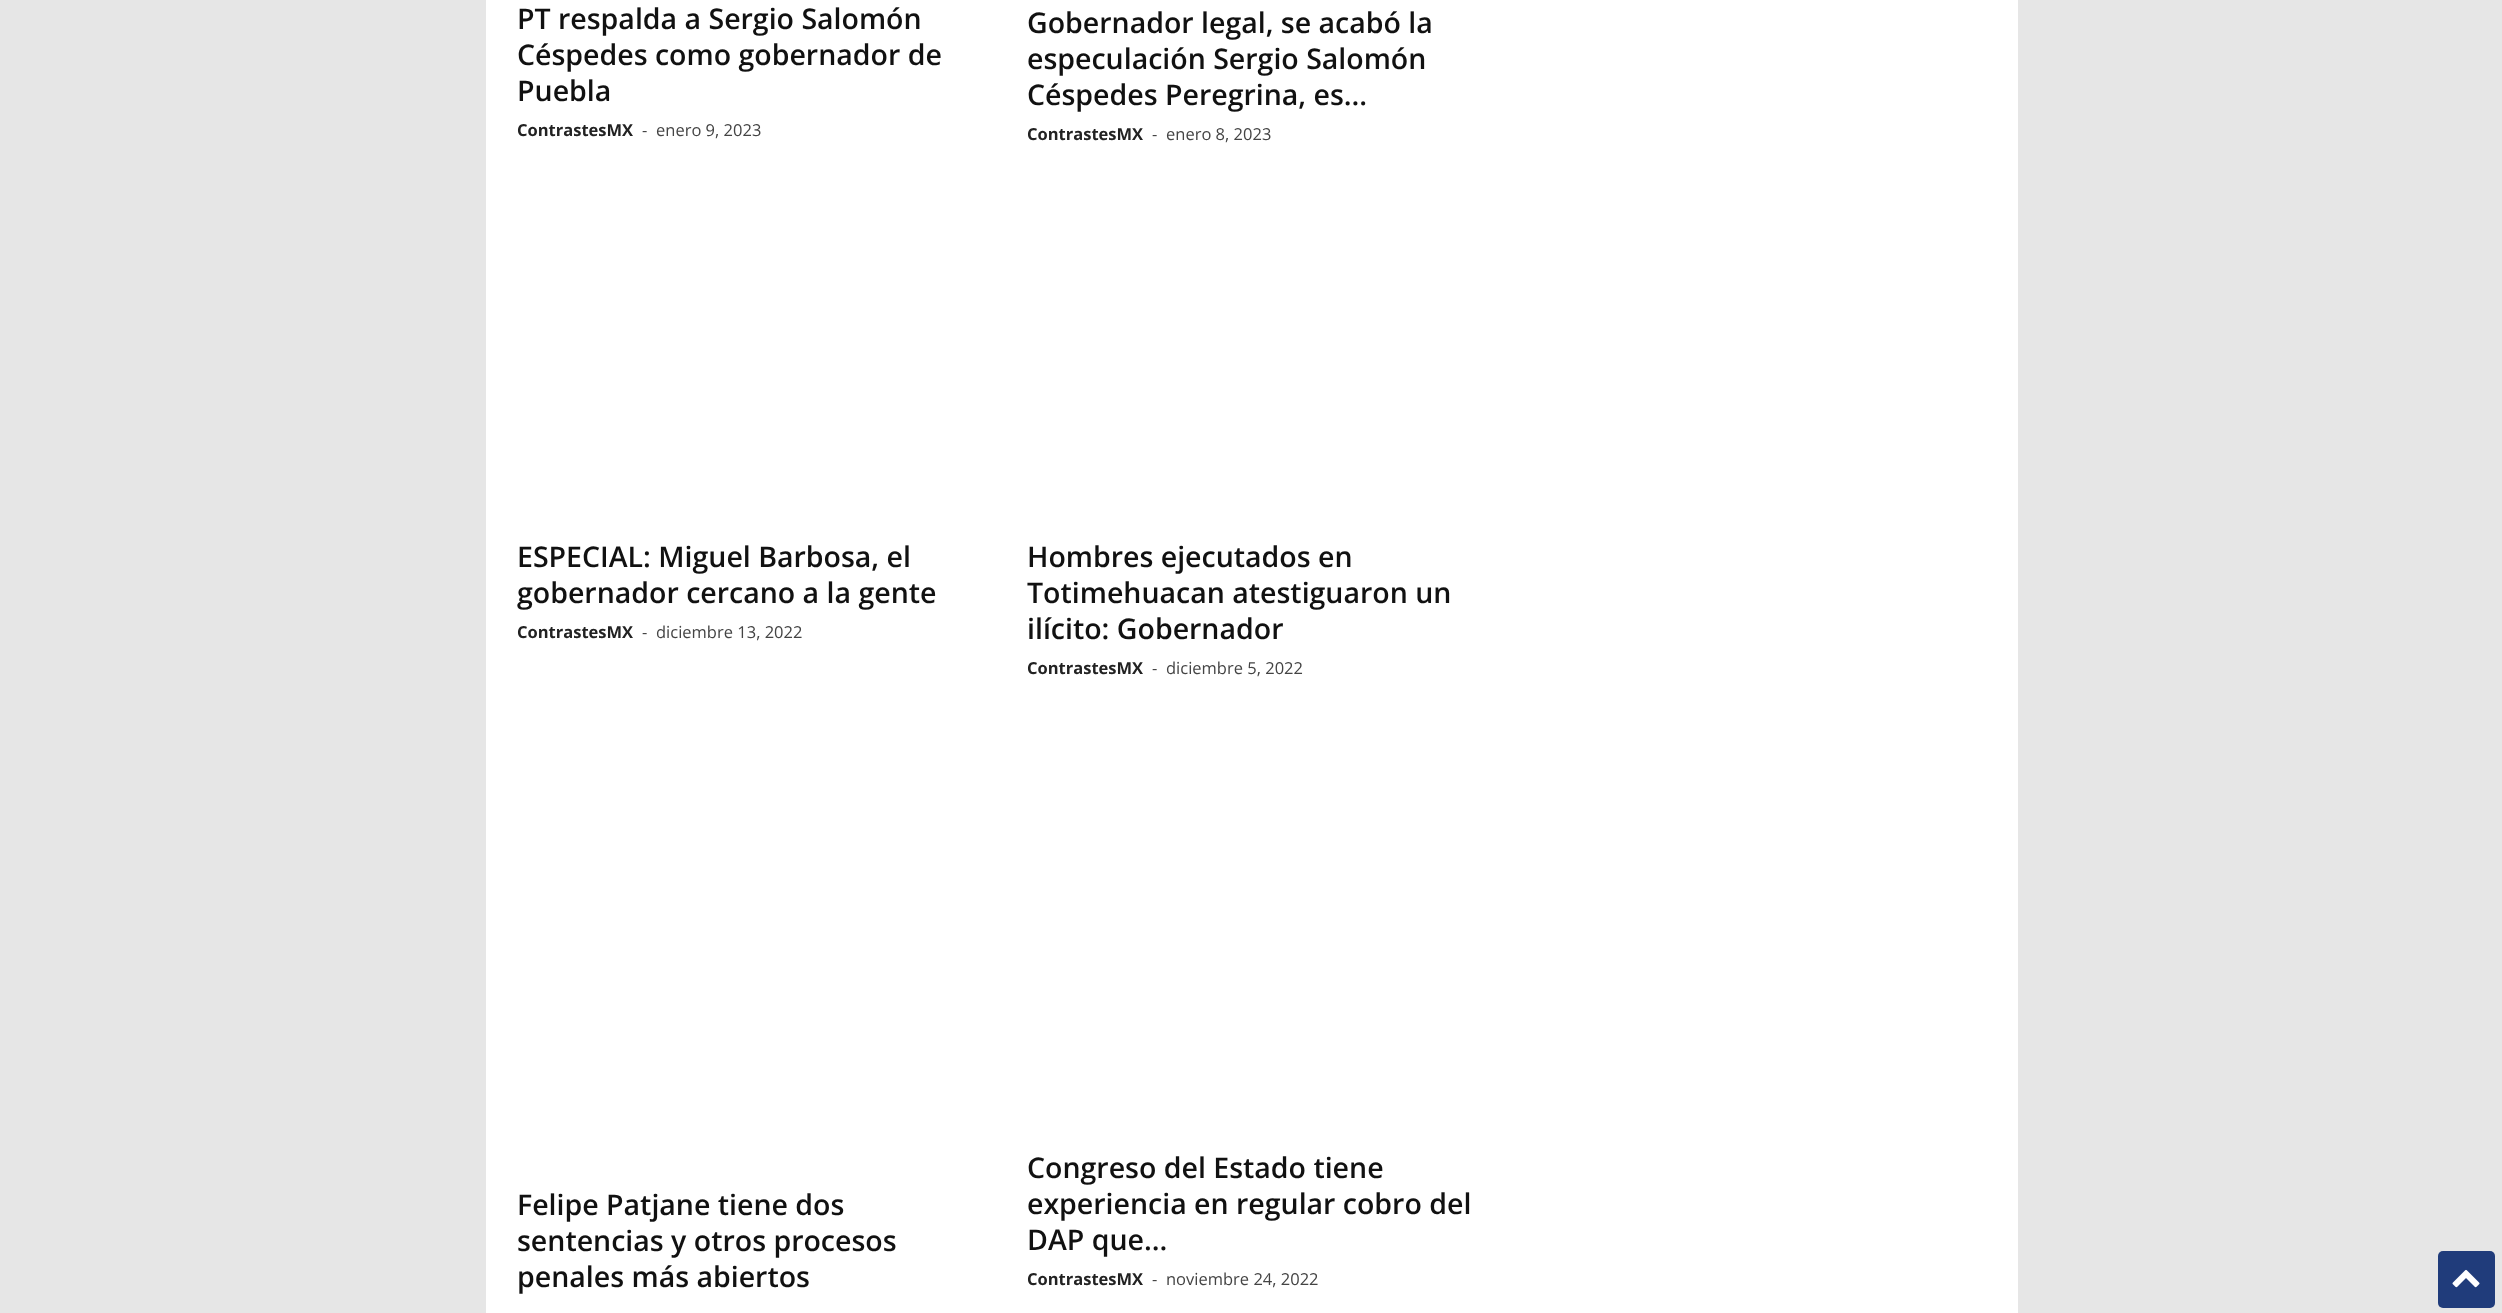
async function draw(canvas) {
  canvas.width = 2502;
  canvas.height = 1313;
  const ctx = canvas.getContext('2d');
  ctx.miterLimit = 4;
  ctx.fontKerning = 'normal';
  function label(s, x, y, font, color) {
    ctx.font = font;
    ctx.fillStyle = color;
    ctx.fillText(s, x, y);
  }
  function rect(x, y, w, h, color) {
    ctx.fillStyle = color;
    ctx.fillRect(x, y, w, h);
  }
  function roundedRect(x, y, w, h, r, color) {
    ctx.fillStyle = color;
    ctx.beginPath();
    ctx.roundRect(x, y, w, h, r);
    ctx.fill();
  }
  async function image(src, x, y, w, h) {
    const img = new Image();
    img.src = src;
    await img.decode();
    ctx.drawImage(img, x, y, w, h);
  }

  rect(0, 0, 2502, 1313, '#e6e6e6');
  rect(486, 0, 1532, 1313, '#fff');
  label('PT respalda a Sergio Salomón', 517, 29, '600 28.5px Open Sans', '#111');
  label('Céspedes como gobernador de', 517, 65, '600 28.5px Open Sans', '#111');
  label('Puebla', 517, 101, '600 28.5px Open Sans', '#111');
  label('ContrastesMX', 517, 136, 'bold 16.5px Open Sans', '#222');
  label('-', 642, 136, '16.5px Open Sans', '#444');
  label('enero 9, 2023', 656, 136, '16.5px Open Sans', '#444');
  label('Gobernador legal, se acabó la', 1027, 33, '600 28.5px Open Sans', '#111');
  label('especulación Sergio Salomón', 1027, 69, '600 28.5px Open Sans', '#111');
  label('Céspedes Peregrina, es...', 1027, 105, '600 28.5px Open Sans', '#111');
  label('ContrastesMX', 1027, 140, 'bold 16.5px Open Sans', '#222');
  label('-', 1152, 140, '16.5px Open Sans', '#444');
  label('enero 8, 2023', 1166, 140, '16.5px Open Sans', '#444');
  label('ESPECIAL: Miguel Barbosa, el', 517, 567, '600 28.5px Open Sans', '#111');
  label('gobernador cercano a la gente', 517, 603, '600 28.5px Open Sans', '#111');
  label('ContrastesMX', 517, 638, 'bold 16.5px Open Sans', '#222');
  label('-', 642, 638, '16.5px Open Sans', '#444');
  label('diciembre 13, 2022', 656, 638, '16.5px Open Sans', '#444');
  label('Hombres ejecutados en', 1027, 567, '600 28.5px Open Sans', '#111');
  label('Totimehuacan atestiguaron un', 1027, 603, '600 28.5px Open Sans', '#111');
  label('ilícito: Gobernador', 1027, 639, '600 28.5px Open Sans', '#111');
  label('ContrastesMX', 1027, 674, 'bold 16.5px Open Sans', '#222');
  label('-', 1152, 674, '16.5px Open Sans', '#444');
  label('diciembre 5, 2022', 1166, 674, '16.5px Open Sans', '#444');
  label('Felipe Patjane tiene dos', 517, 1215, '600 28.5px Open Sans', '#111');
  label('sentencias y otros procesos', 517, 1251, '600 28.5px Open Sans', '#111');
  label('penales más abiertos', 517, 1287, '600 28.5px Open Sans', '#111');
  label('Congreso del Estado tiene', 1027, 1178, '600 28.5px Open Sans', '#111');
  label('experiencia en regular cobro del', 1027, 1214, '600 28.5px Open Sans', '#111');
  label('DAP que...', 1027, 1250, '600 28.5px Open Sans', '#111');
  label('ContrastesMX', 1027, 1285, 'bold 16.5px Open Sans', '#222');
  label('-', 1152, 1285, '16.5px Open Sans', '#444');
  label('noviembre 24, 2022', 1166, 1285, '16.5px Open Sans', '#444');
  roundedRect(2438, 1251, 57, 57, 5, '#203c7b');
  await image('assets/img1.png', 2452, 1269, 28, 19);
}

draw(document.querySelector('canvas'));
